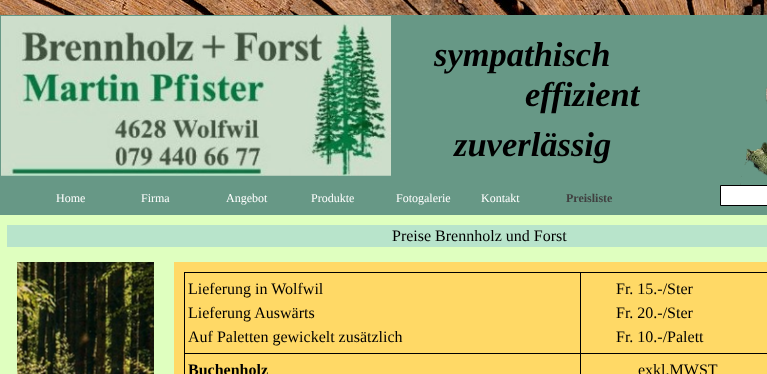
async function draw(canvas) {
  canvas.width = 767;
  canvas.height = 374;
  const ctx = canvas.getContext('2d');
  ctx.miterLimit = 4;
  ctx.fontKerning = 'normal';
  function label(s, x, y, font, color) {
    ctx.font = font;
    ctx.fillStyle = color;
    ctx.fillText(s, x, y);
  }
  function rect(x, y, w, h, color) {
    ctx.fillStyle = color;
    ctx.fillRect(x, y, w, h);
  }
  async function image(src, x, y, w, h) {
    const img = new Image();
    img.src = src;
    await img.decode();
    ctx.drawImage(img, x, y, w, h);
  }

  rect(0, 0, 767, 374, '#fff');
  await image('assets/img1.png', 0, 0, 767, 15);
  rect(0, 15, 767, 200, '#679886');
  await image('assets/img2.png', 1, 16, 390, 160);
  label('sympathisch', 434, 66, 'italic bold 34.5px Liberation Serif', '#000');
  label('effizient', 525, 106, 'italic bold 34.5px Liberation Serif', '#000');
  await image('assets/img3.png', 740, 87, 27, 98);
  label('zuverlässig', 454, 156, 'italic bold 34.5px Liberation Serif', '#000');
  label('Home', 56, 202, '12px Liberation Serif', '#fff');
  label('Firma', 141, 202, '12px Liberation Serif', '#fff');
  label('Angebot', 226, 202, '12px Liberation Serif', '#fff');
  label('Produkte', 311, 202, '12px Liberation Serif', '#fff');
  label('Fotogalerie', 396, 202, '12px Liberation Serif', '#fff');
  label('Kontakt', 481, 202, '12px Liberation Serif', '#fff');
  label('Preisliste', 566, 202, 'bold 12px Liberation Serif', '#404040');
  ctx.fillStyle = '#fff';
  ctx.beginPath();
  ctx.rect(720.5, 185.5, 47, 20);
  ctx.fill();
  ctx.strokeStyle = '#000';
  ctx.stroke();
  rect(0, 215, 767, 159, '#dfffbf');
  rect(7, 225, 760, 22, '#b8e4cb');
  label('Preise Brennholz und Forst', 392, 241, '16px Liberation Serif', '#000');
  await image('assets/img4.png', 17, 262, 137, 112);
  rect(174, 262, 593, 112, '#ffd966');
  rect(580, 272, 187, 1, '#000');
  rect(580, 353, 187, 1, '#000');
  rect(580, 353, 1, 21, '#000');
  rect(184, 353, 397, 1, '#000');
  rect(580, 272, 1, 82, '#000');
  rect(184, 272, 397, 1, '#000');
  rect(184, 353, 1, 21, '#000');
  rect(184, 272, 1, 82, '#000');
  label('Lieferung in Wolfwil', 188, 294, '16px Liberation Serif', '#000');
  label('Lieferung Auswärts', 188, 318, '16px Liberation Serif', '#000');
  label('Auf Paletten gewickelt zusätzlich', 188, 342, '16px Liberation Serif', '#000');
  label('Fr. 15.-/Ster', 616, 294, '16px Liberation Serif', '#000');
  label('Fr. 20.-/Ster', 616, 318, '16px Liberation Serif', '#000');
  label('Fr. 10.-/Palett', 616, 342, '16px Liberation Serif', '#000');
  label('Buchenholz', 188, 375, 'bold 16px Liberation Serif', '#000');
  label('exkl.MWST', 638, 375, '16px Liberation Serif', '#000');
}

draw(document.querySelector('canvas'));
